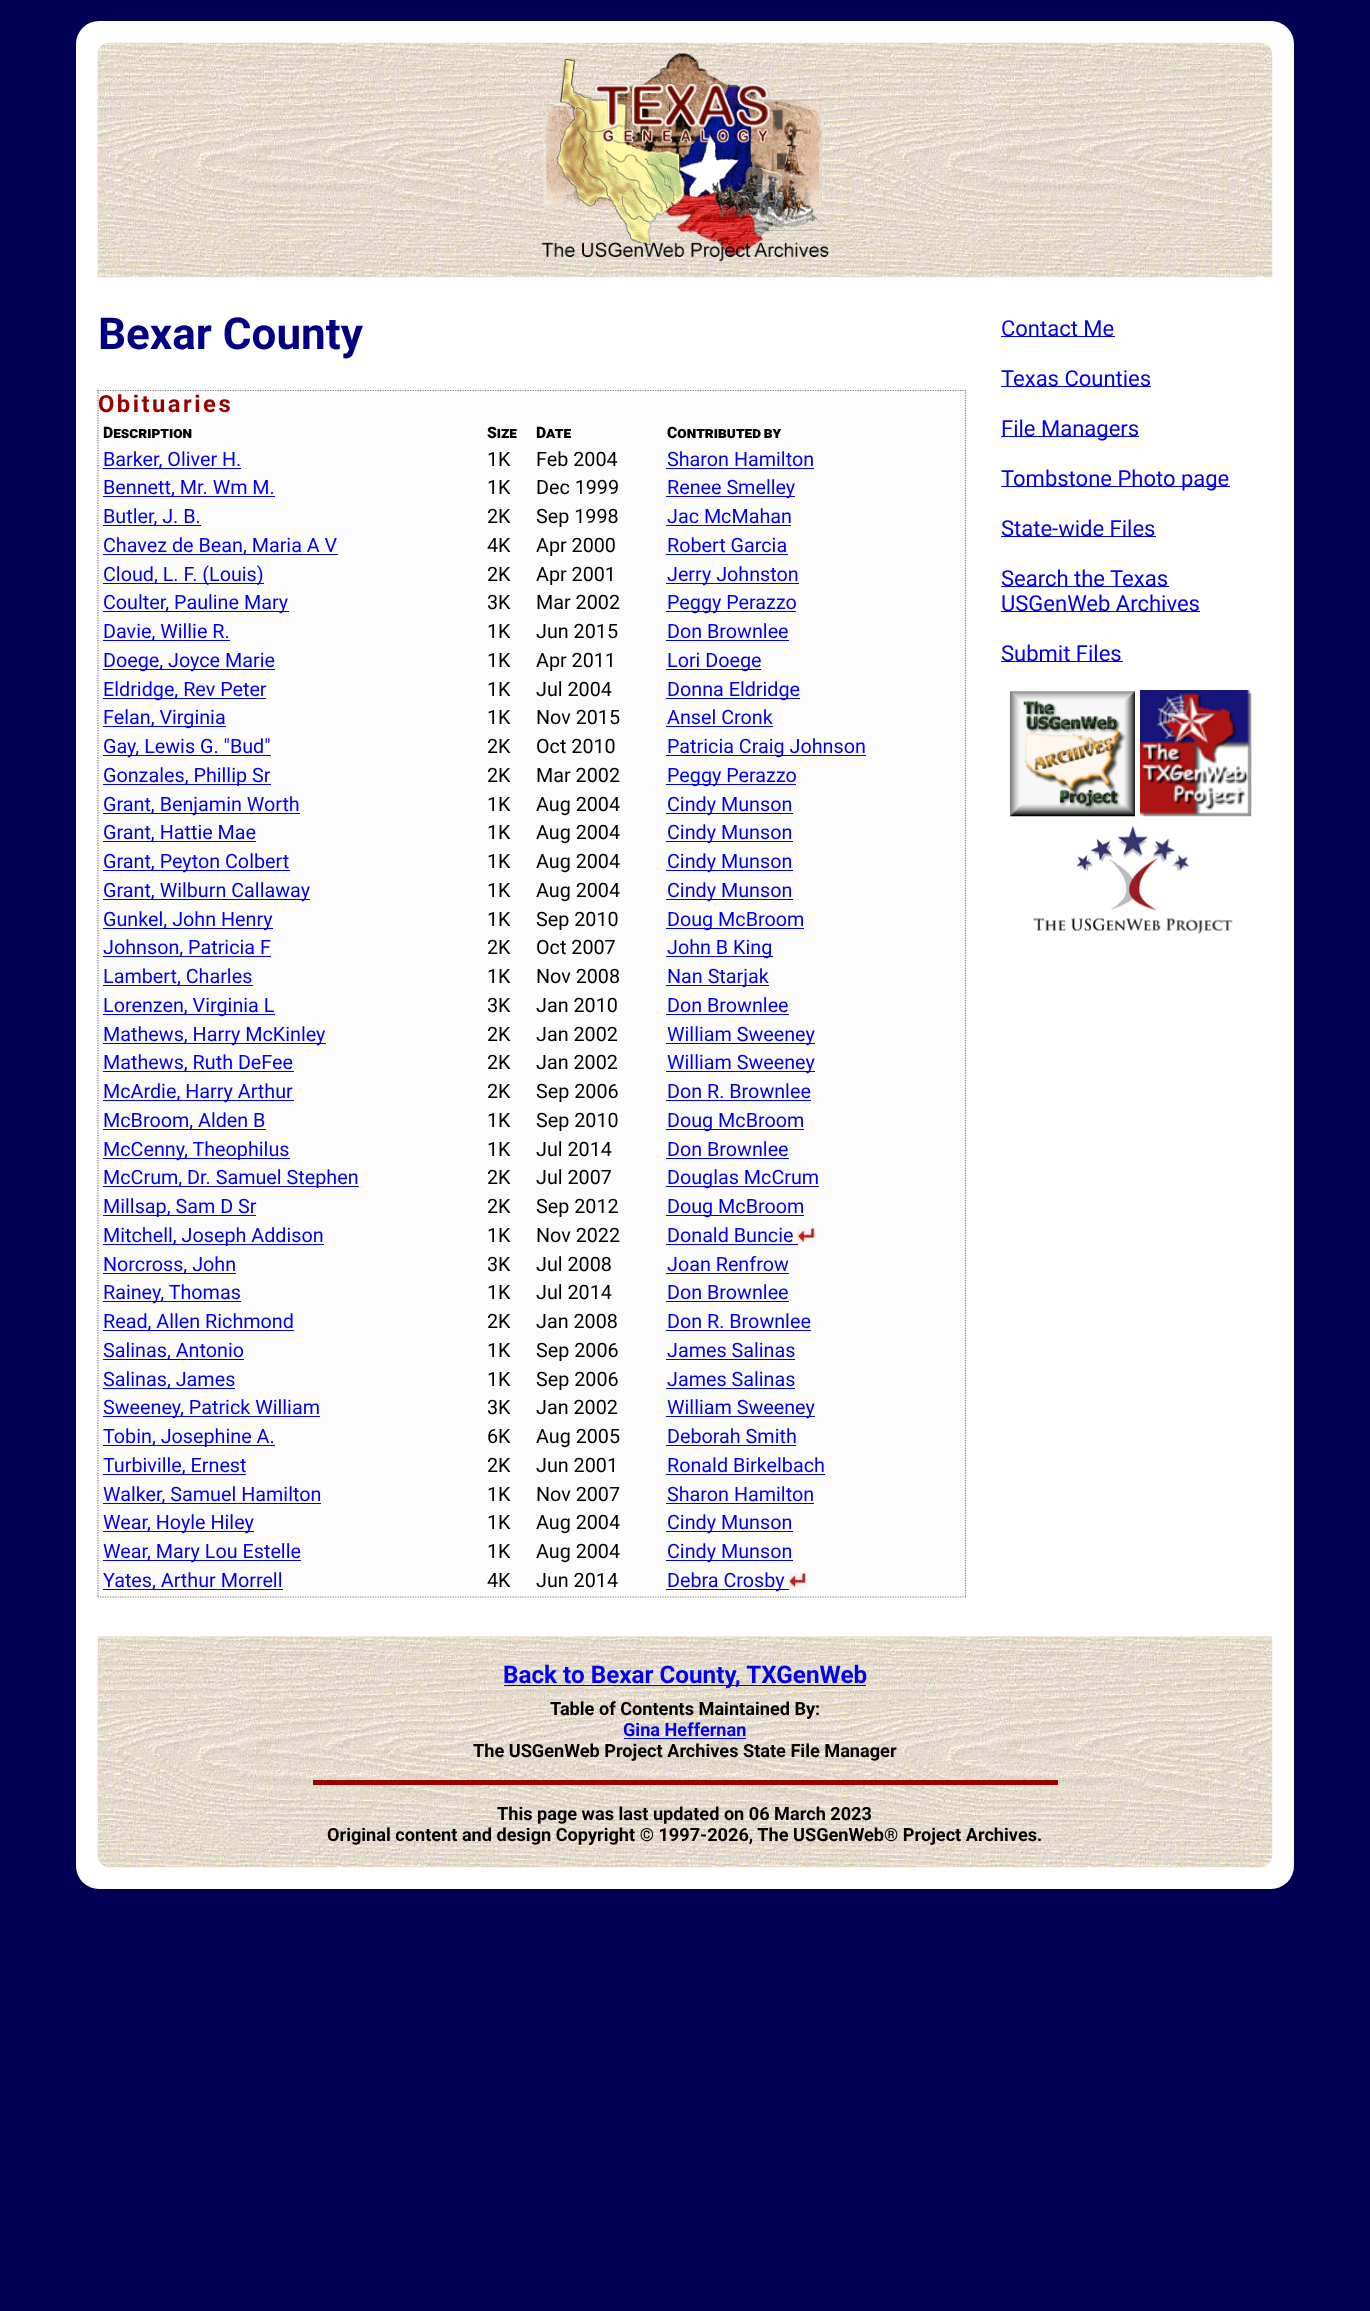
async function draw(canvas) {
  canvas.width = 1370;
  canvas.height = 2311;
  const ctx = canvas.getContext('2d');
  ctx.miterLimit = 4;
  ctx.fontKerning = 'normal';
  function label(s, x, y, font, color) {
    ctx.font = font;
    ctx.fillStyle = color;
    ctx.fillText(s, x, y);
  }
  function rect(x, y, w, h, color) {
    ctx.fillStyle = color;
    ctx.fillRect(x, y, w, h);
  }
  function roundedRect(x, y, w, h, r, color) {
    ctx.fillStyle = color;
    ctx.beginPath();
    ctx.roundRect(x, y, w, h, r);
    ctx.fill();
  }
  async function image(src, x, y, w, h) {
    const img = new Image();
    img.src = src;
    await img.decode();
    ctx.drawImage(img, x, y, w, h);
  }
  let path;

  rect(0, 0, 1370, 2311, '#005');
  roundedRect(76, 21, 1218, 1868, 23, '#fff');
  await image('assets/img1.png', 97, 42, 1176, 236);
  await image('assets/img2.png', 541, 53, 288, 209);
  label('Bexar County', 98, 349, 'bold 44px Roboto', '#000080');
  rect(98, 390, 868, 1208, '#fcfcfc');
  path = new Path2D('M97.5 390.5H966');
  ctx.strokeStyle = '#808080';
  ctx.lineWidth = 1.2;
  ctx.setLineDash([1.25, 1.25]);
  ctx.stroke(path);
  path = new Path2D('M965.5 390V1597.5');
  ctx.stroke(path);
  path = new Path2D('M97.5 1597H966');
  ctx.stroke(path);
  path = new Path2D('M98 390V1597.5');
  ctx.stroke(path);
  ctx.letterSpacing = '2.5px';
  label('Obituaries', 98, 412, 'bold 23.75px Roboto', '#900');
  ctx.letterSpacing = '0px';
  label('Description', 103, 438, '900 15.75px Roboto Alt', '#000');
  label('Size', 487, 438, '900 15.75px Roboto Alt', '#000');
  label('Date', 536, 438, '900 15.75px Roboto Alt', '#000');
  ctx.wordSpacing = '-1px';
  label('Contributed by', 667, 438, '900 15.75px Roboto Alt', '#000');
  rect(103, 468, 138, 1, '#00e');
  ctx.wordSpacing = '0px';
  label('Barker, Oliver H.', 103, 466, '19.75px Roboto', '#00e');
  label('1K', 487, 466, '19.75px Roboto', '#000');
  label('Feb 2004', 536, 466, '19.75px Roboto', '#000');
  label('Sharon Hamilton', 667, 466, '19.75px Roboto', '#00e');
  rect(666, 468, 148, 1, '#00e');
  rect(103, 496, 172, 1, '#00e');
  label('Bennett, Mr. Wm M.', 103, 494, '19.75px Roboto', '#00e');
  label('1K', 487, 494, '19.75px Roboto', '#000');
  label('Dec 1999', 536, 494, '19.75px Roboto', '#000');
  rect(666, 496, 129, 1, '#00e');
  label('Renee Smelley', 667, 494, '19.75px Roboto', '#00e');
  rect(103, 525, 98, 1, '#00e');
  label('Butler, J. B.', 103, 523, '19.75px Roboto', '#00e');
  label('2K', 487, 523, '19.75px Roboto', '#000');
  label('Sep 1998', 536, 523, '19.75px Roboto', '#000');
  label('Jac McMahan', 667, 523, '19.75px Roboto', '#00e');
  rect(666, 525, 125, 1, '#00e');
  rect(103, 554, 235, 1, '#00e');
  label('Chavez de Bean, Maria A V', 103, 552, '19.75px Roboto', '#00e');
  label('4K', 487, 552, '19.75px Roboto', '#000');
  label('Apr 2000', 536, 552, '19.75px Roboto', '#000');
  label('Robert Garcia', 667, 552, '19.75px Roboto', '#00e');
  rect(666, 554, 122, 1, '#00e');
  rect(103, 583, 161, 1, '#00e');
  label('Cloud, L. F. (Louis)', 103, 581, '19.75px Roboto', '#00e');
  label('2K', 487, 581, '19.75px Roboto', '#000');
  label('Apr 2001', 536, 581, '19.75px Roboto', '#000');
  rect(666, 583, 133, 1, '#00e');
  label('Jerry Johnston', 667, 581, '19.75px Roboto', '#00e');
  rect(103, 611, 186, 1, '#00e');
  label('Coulter, Pauline Mary', 103, 609, '19.75px Roboto', '#00e');
  label('3K', 487, 609, '19.75px Roboto', '#000');
  label('Mar 2002', 536, 609, '19.75px Roboto', '#000');
  rect(666, 611, 130, 1, '#00e');
  label('Peggy Perazzo', 667, 609, '19.75px Roboto', '#00e');
  rect(103, 640, 127, 1, '#00e');
  label('Davie, Willie R.', 103, 638, '19.75px Roboto', '#00e');
  label('1K', 487, 638, '19.75px Roboto', '#000');
  label('Jun 2015', 536, 638, '19.75px Roboto', '#000');
  label('Don Brownlee', 667, 638, '19.75px Roboto', '#00e');
  rect(666, 640, 123, 1, '#00e');
  rect(103, 669, 172, 1, '#00e');
  label('Doege, Joyce Marie', 103, 667, '19.75px Roboto', '#00e');
  label('1K', 487, 667, '19.75px Roboto', '#000');
  label('Apr 2011', 536, 667, '19.75px Roboto', '#000');
  rect(666, 669, 95, 1, '#00e');
  label('Lori Doege', 667, 667, '19.75px Roboto', '#00e');
  rect(103, 698, 163, 1, '#00e');
  label('Eldridge, Rev Peter', 103, 696, '19.75px Roboto', '#00e');
  label('1K', 487, 696, '19.75px Roboto', '#000');
  label('Jul 2004', 536, 696, '19.75px Roboto', '#000');
  rect(666, 698, 134, 1, '#00e');
  label('Donna Eldridge', 667, 696, '19.75px Roboto', '#00e');
  rect(103, 726, 123, 1, '#00e');
  label('Felan, Virginia', 103, 724, '19.75px Roboto', '#00e');
  label('1K', 487, 724, '19.75px Roboto', '#000');
  label('Nov 2015', 536, 724, '19.75px Roboto', '#000');
  label('Ansel Cronk', 667, 724, '19.75px Roboto', '#00e');
  rect(666, 726, 107, 1, '#00e');
  rect(103, 755, 168, 1, '#00e');
  label('Gay, Lewis G. "Bud"', 103, 753, '19.75px Roboto', '#00e');
  label('2K', 487, 753, '19.75px Roboto', '#000');
  label('Oct 2010', 536, 753, '19.75px Roboto', '#000');
  rect(666, 755, 200, 1, '#00e');
  label('Patricia Craig Johnson', 667, 753, '19.75px Roboto', '#00e');
  rect(103, 784, 168, 1, '#00e');
  label('Gonzales, Phillip Sr', 103, 782, '19.75px Roboto', '#00e');
  label('2K', 487, 782, '19.75px Roboto', '#000');
  label('Mar 2002', 536, 782, '19.75px Roboto', '#000');
  rect(666, 784, 130, 1, '#00e');
  label('Peggy Perazzo', 667, 782, '19.75px Roboto', '#00e');
  rect(103, 813, 197, 1, '#00e');
  label('Grant, Benjamin Worth', 103, 811, '19.75px Roboto', '#00e');
  label('1K', 487, 811, '19.75px Roboto', '#000');
  label('Aug 2004', 536, 811, '19.75px Roboto', '#000');
  rect(666, 813, 127, 1, '#00e');
  label('Cindy Munson', 667, 811, '19.75px Roboto', '#00e');
  rect(103, 841, 153, 1, '#00e');
  label('Grant, Hattie Mae', 103, 839, '19.75px Roboto', '#00e');
  label('1K', 487, 839, '19.75px Roboto', '#000');
  label('Aug 2004', 536, 839, '19.75px Roboto', '#000');
  rect(666, 841, 127, 1, '#00e');
  label('Cindy Munson', 667, 839, '19.75px Roboto', '#00e');
  rect(103, 870, 187, 1, '#00e');
  label('Grant, Peyton Colbert', 103, 868, '19.75px Roboto', '#00e');
  label('1K', 487, 868, '19.75px Roboto', '#000');
  label('Aug 2004', 536, 868, '19.75px Roboto', '#000');
  rect(666, 870, 127, 1, '#00e');
  label('Cindy Munson', 667, 868, '19.75px Roboto', '#00e');
  rect(103, 899, 207, 1, '#00e');
  label('Grant, Wilburn Callaway', 103, 897, '19.75px Roboto', '#00e');
  label('1K', 487, 897, '19.75px Roboto', '#000');
  label('Aug 2004', 536, 897, '19.75px Roboto', '#000');
  rect(666, 899, 127, 1, '#00e');
  label('Cindy Munson', 667, 897, '19.75px Roboto', '#00e');
  rect(103, 928, 170, 1, '#00e');
  label('Gunkel, John Henry', 103, 926, '19.75px Roboto', '#00e');
  label('1K', 487, 926, '19.75px Roboto', '#000');
  label('Sep 2010', 536, 926, '19.75px Roboto', '#000');
  rect(666, 928, 138, 1, '#00e');
  label('Doug McBroom', 667, 926, '19.75px Roboto', '#00e');
  rect(103, 956, 168, 1, '#00e');
  label('Johnson, Patricia F', 103, 954, '19.75px Roboto', '#00e');
  label('2K', 487, 954, '19.75px Roboto', '#000');
  label('Oct 2007', 536, 954, '19.75px Roboto', '#000');
  rect(666, 956, 107, 1, '#00e');
  label('John B King', 667, 954, '19.75px Roboto', '#00e');
  rect(103, 985, 150, 1, '#00e');
  label('Lambert, Charles', 103, 983, '19.75px Roboto', '#00e');
  label('1K', 487, 983, '19.75px Roboto', '#000');
  label('Nov 2008', 536, 983, '19.75px Roboto', '#000');
  rect(666, 985, 103, 1, '#00e');
  label('Nan Starjak', 667, 983, '19.75px Roboto', '#00e');
  rect(103, 1014, 172, 1, '#00e');
  label('Lorenzen, Virginia L', 103, 1012, '19.75px Roboto', '#00e');
  label('3K', 487, 1012, '19.75px Roboto', '#000');
  label('Jan 2010', 536, 1012, '19.75px Roboto', '#000');
  label('Don Brownlee', 667, 1012, '19.75px Roboto', '#00e');
  rect(666, 1014, 123, 1, '#00e');
  rect(103, 1043, 223, 1, '#00e');
  label('Mathews, Harry McKinley', 103, 1041, '19.75px Roboto', '#00e');
  label('2K', 487, 1041, '19.75px Roboto', '#000');
  label('Jan 2002', 536, 1041, '19.75px Roboto', '#000');
  rect(666, 1043, 149, 1, '#00e');
  label('William Sweeney', 667, 1041, '19.75px Roboto', '#00e');
  rect(103, 1071, 191, 1, '#00e');
  label('Mathews, Ruth DeFee', 103, 1069, '19.75px Roboto', '#00e');
  label('2K', 487, 1069, '19.75px Roboto', '#000');
  label('Jan 2002', 536, 1069, '19.75px Roboto', '#000');
  rect(666, 1071, 149, 1, '#00e');
  label('William Sweeney', 667, 1069, '19.75px Roboto', '#00e');
  rect(103, 1100, 191, 1, '#00e');
  label('McArdie, Harry Arthur', 103, 1098, '19.75px Roboto', '#00e');
  label('2K', 487, 1098, '19.75px Roboto', '#000');
  label('Sep 2006', 536, 1098, '19.75px Roboto', '#000');
  label('Don R. Brownlee', 667, 1098, '19.75px Roboto', '#00e');
  rect(666, 1100, 145, 1, '#00e');
  rect(103, 1129, 163, 1, '#00e');
  label('McBroom, Alden B', 103, 1127, '19.75px Roboto', '#00e');
  label('1K', 487, 1127, '19.75px Roboto', '#000');
  label('Sep 2010', 536, 1127, '19.75px Roboto', '#000');
  rect(666, 1129, 138, 1, '#00e');
  label('Doug McBroom', 667, 1127, '19.75px Roboto', '#00e');
  rect(103, 1158, 187, 1, '#00e');
  label('McCenny, Theophilus', 103, 1156, '19.75px Roboto', '#00e');
  label('1K', 487, 1156, '19.75px Roboto', '#000');
  label('Jul 2014', 536, 1156, '19.75px Roboto', '#000');
  label('Don Brownlee', 667, 1156, '19.75px Roboto', '#00e');
  rect(666, 1158, 123, 1, '#00e');
  rect(103, 1186, 256, 1, '#00e');
  label('McCrum, Dr. Samuel Stephen', 103, 1184, '19.75px Roboto', '#00e');
  label('2K', 487, 1184, '19.75px Roboto', '#000');
  label('Jul 2007', 536, 1184, '19.75px Roboto', '#000');
  rect(666, 1186, 153, 1, '#00e');
  label('Douglas McCrum', 667, 1184, '19.75px Roboto', '#00e');
  rect(103, 1215, 153, 1, '#00e');
  label('Millsap, Sam D Sr', 103, 1213, '19.75px Roboto', '#00e');
  label('2K', 487, 1213, '19.75px Roboto', '#000');
  label('Sep 2012', 536, 1213, '19.75px Roboto', '#000');
  rect(666, 1215, 138, 1, '#00e');
  label('Doug McBroom', 667, 1213, '19.75px Roboto', '#00e');
  rect(103, 1244, 221, 1, '#00e');
  label('Mitchell, Joseph Addison', 103, 1242, '19.75px Roboto', '#00e');
  label('1K', 487, 1242, '19.75px Roboto', '#000');
  label('Nov 2022', 536, 1242, '19.75px Roboto', '#000');
  label('Donald Buncie', 667, 1242, '19.75px Roboto', '#00e');
  rect(666, 1244, 132, 1, '#00e');
  await image('assets/img3.png', 797, 1227, 18, 16);
  rect(103, 1273, 133, 1, '#00e');
  label('Norcross, John', 103, 1271, '19.75px Roboto', '#00e');
  label('3K', 487, 1271, '19.75px Roboto', '#000');
  label('Jul 2008', 536, 1271, '19.75px Roboto', '#000');
  label('Joan Renfrow', 667, 1271, '19.75px Roboto', '#00e');
  rect(666, 1273, 123, 1, '#00e');
  rect(103, 1301, 138, 1, '#00e');
  label('Rainey, Thomas', 103, 1299, '19.75px Roboto', '#00e');
  label('1K', 487, 1299, '19.75px Roboto', '#000');
  label('Jul 2014', 536, 1299, '19.75px Roboto', '#000');
  label('Don Brownlee', 667, 1299, '19.75px Roboto', '#00e');
  rect(666, 1301, 123, 1, '#00e');
  rect(103, 1330, 191, 1, '#00e');
  label('Read, Allen Richmond', 103, 1328, '19.75px Roboto', '#00e');
  label('2K', 487, 1328, '19.75px Roboto', '#000');
  label('Jan 2008', 536, 1328, '19.75px Roboto', '#000');
  label('Don R. Brownlee', 667, 1328, '19.75px Roboto', '#00e');
  rect(666, 1330, 145, 1, '#00e');
  rect(103, 1359, 141, 1, '#00e');
  label('Salinas, Antonio', 103, 1357, '19.75px Roboto', '#00e');
  label('1K', 487, 1357, '19.75px Roboto', '#000');
  label('Sep 2006', 536, 1357, '19.75px Roboto', '#000');
  label('James Salinas', 667, 1357, '19.75px Roboto', '#00e');
  rect(666, 1359, 129, 1, '#00e');
  rect(103, 1388, 132, 1, '#00e');
  label('Salinas, James', 103, 1386, '19.75px Roboto', '#00e');
  label('1K', 487, 1386, '19.75px Roboto', '#000');
  label('Sep 2006', 536, 1386, '19.75px Roboto', '#000');
  label('James Salinas', 667, 1386, '19.75px Roboto', '#00e');
  rect(666, 1388, 129, 1, '#00e');
  rect(103, 1416, 217, 1, '#00e');
  label('Sweeney, Patrick William', 103, 1414, '19.75px Roboto', '#00e');
  label('3K', 487, 1414, '19.75px Roboto', '#000');
  label('Jan 2002', 536, 1414, '19.75px Roboto', '#000');
  rect(666, 1416, 149, 1, '#00e');
  label('William Sweeney', 667, 1414, '19.75px Roboto', '#00e');
  rect(103, 1445, 172, 1, '#00e');
  label('Tobin, Josephine A.', 103, 1443, '19.75px Roboto', '#00e');
  label('6K', 487, 1443, '19.75px Roboto', '#000');
  label('Aug 2005', 536, 1443, '19.75px Roboto', '#000');
  label('Deborah Smith', 667, 1443, '19.75px Roboto', '#00e');
  rect(666, 1445, 130, 1, '#00e');
  rect(103, 1474, 143, 1, '#00e');
  label('Turbiville, Ernest', 103, 1472, '19.75px Roboto', '#00e');
  label('2K', 487, 1472, '19.75px Roboto', '#000');
  label('Jun 2001', 536, 1472, '19.75px Roboto', '#000');
  label('Ronald Birkelbach', 667, 1472, '19.75px Roboto', '#00e');
  rect(666, 1474, 159, 1, '#00e');
  rect(103, 1503, 218, 1, '#00e');
  label('Walker, Samuel Hamilton', 103, 1501, '19.75px Roboto', '#00e');
  label('1K', 487, 1501, '19.75px Roboto', '#000');
  label('Nov 2007', 536, 1501, '19.75px Roboto', '#000');
  label('Sharon Hamilton', 667, 1501, '19.75px Roboto', '#00e');
  rect(666, 1503, 148, 1, '#00e');
  rect(103, 1531, 151, 1, '#00e');
  label('Wear, Hoyle Hiley', 103, 1529, '19.75px Roboto', '#00e');
  label('1K', 487, 1529, '19.75px Roboto', '#000');
  label('Aug 2004', 536, 1529, '19.75px Roboto', '#000');
  rect(666, 1531, 127, 1, '#00e');
  label('Cindy Munson', 667, 1529, '19.75px Roboto', '#00e');
  rect(103, 1560, 198, 1, '#00e');
  label('Wear, Mary Lou Estelle', 103, 1558, '19.75px Roboto', '#00e');
  label('1K', 487, 1558, '19.75px Roboto', '#000');
  label('Aug 2004', 536, 1558, '19.75px Roboto', '#000');
  rect(666, 1560, 127, 1, '#00e');
  label('Cindy Munson', 667, 1558, '19.75px Roboto', '#00e');
  rect(103, 1589, 180, 1, '#00e');
  label('Yates, Arthur Morrell', 103, 1587, '19.75px Roboto', '#00e');
  label('4K', 487, 1587, '19.75px Roboto', '#000');
  label('Jun 2014', 536, 1587, '19.75px Roboto', '#000');
  rect(666, 1589, 123, 1, '#00e');
  label('Debra Crosby', 667, 1587, '19.75px Roboto', '#00e');
  await image('assets/img4.png', 788, 1572, 19, 16);
  rect(1001, 336, 114, 1, '#00e');
  label('Contact Me', 1001, 336, '22px Roboto', '#00e');
  rect(1001, 386, 150, 1, '#00e');
  label('Texas Counties', 1001, 386, '22px Roboto', '#00e');
  rect(1001, 436, 138, 1, '#00e');
  label('File Managers', 1001, 436, '22px Roboto', '#00e');
  rect(1001, 486, 229, 1, '#00e');
  label('Tombstone Photo page', 1001, 486, '22px Roboto', '#00e');
  rect(1001, 536, 155, 1, '#00e');
  label('State-wide Files', 1001, 536, '22px Roboto', '#00e');
  rect(1001, 586, 168, 1, '#00e');
  label('Search the Texas', 1001, 586, '22px Roboto', '#00e');
  rect(1001, 611, 199, 1, '#00e');
  label('USGenWeb Archives', 1001, 611, '22px Roboto', '#00e');
  rect(1001, 661, 122, 1, '#00e');
  label('Submit Files', 1001, 661, '22px Roboto', '#00e');
  await image('assets/img5.png', 1010, 691, 125, 126);
  await image('assets/img6.png', 1140, 690, 112, 127);
  await image('assets/img7.png', 1033, 826, 200, 108);
  await image('assets/img8.png', 97, 1636, 1176, 232);
  rect(504, 1685, 362, 1, '#00e');
  label('Back to Bexar County, TXGenWeb', 503, 1683, 'bold 24.25px Roboto', '#00e');
  label('Table of Contents Maintained By:', 550, 1715, 'bold 18.15px Roboto', '#000');
  label('Gina Heffernan', 623, 1736, 'bold 18.15px Roboto', '#00e');
  rect(624, 1738, 122, 1, '#00e');
  label('The USGenWeb Project Archives State File Manager', 473, 1757, 'bold 18.15px Roboto', '#000');
  rect(313, 1780, 745, 5, '#900');
  label('This page was last updated on 06 March 2023', 497, 1820, 'bold 18.15px Roboto', '#000');
  label('Original content and design Copyright © 1997-2026, The USGenWeb® Project Archives.', 327, 1841, 'bold 18.15px Roboto', '#000');
}

draw(document.querySelector('canvas'));
